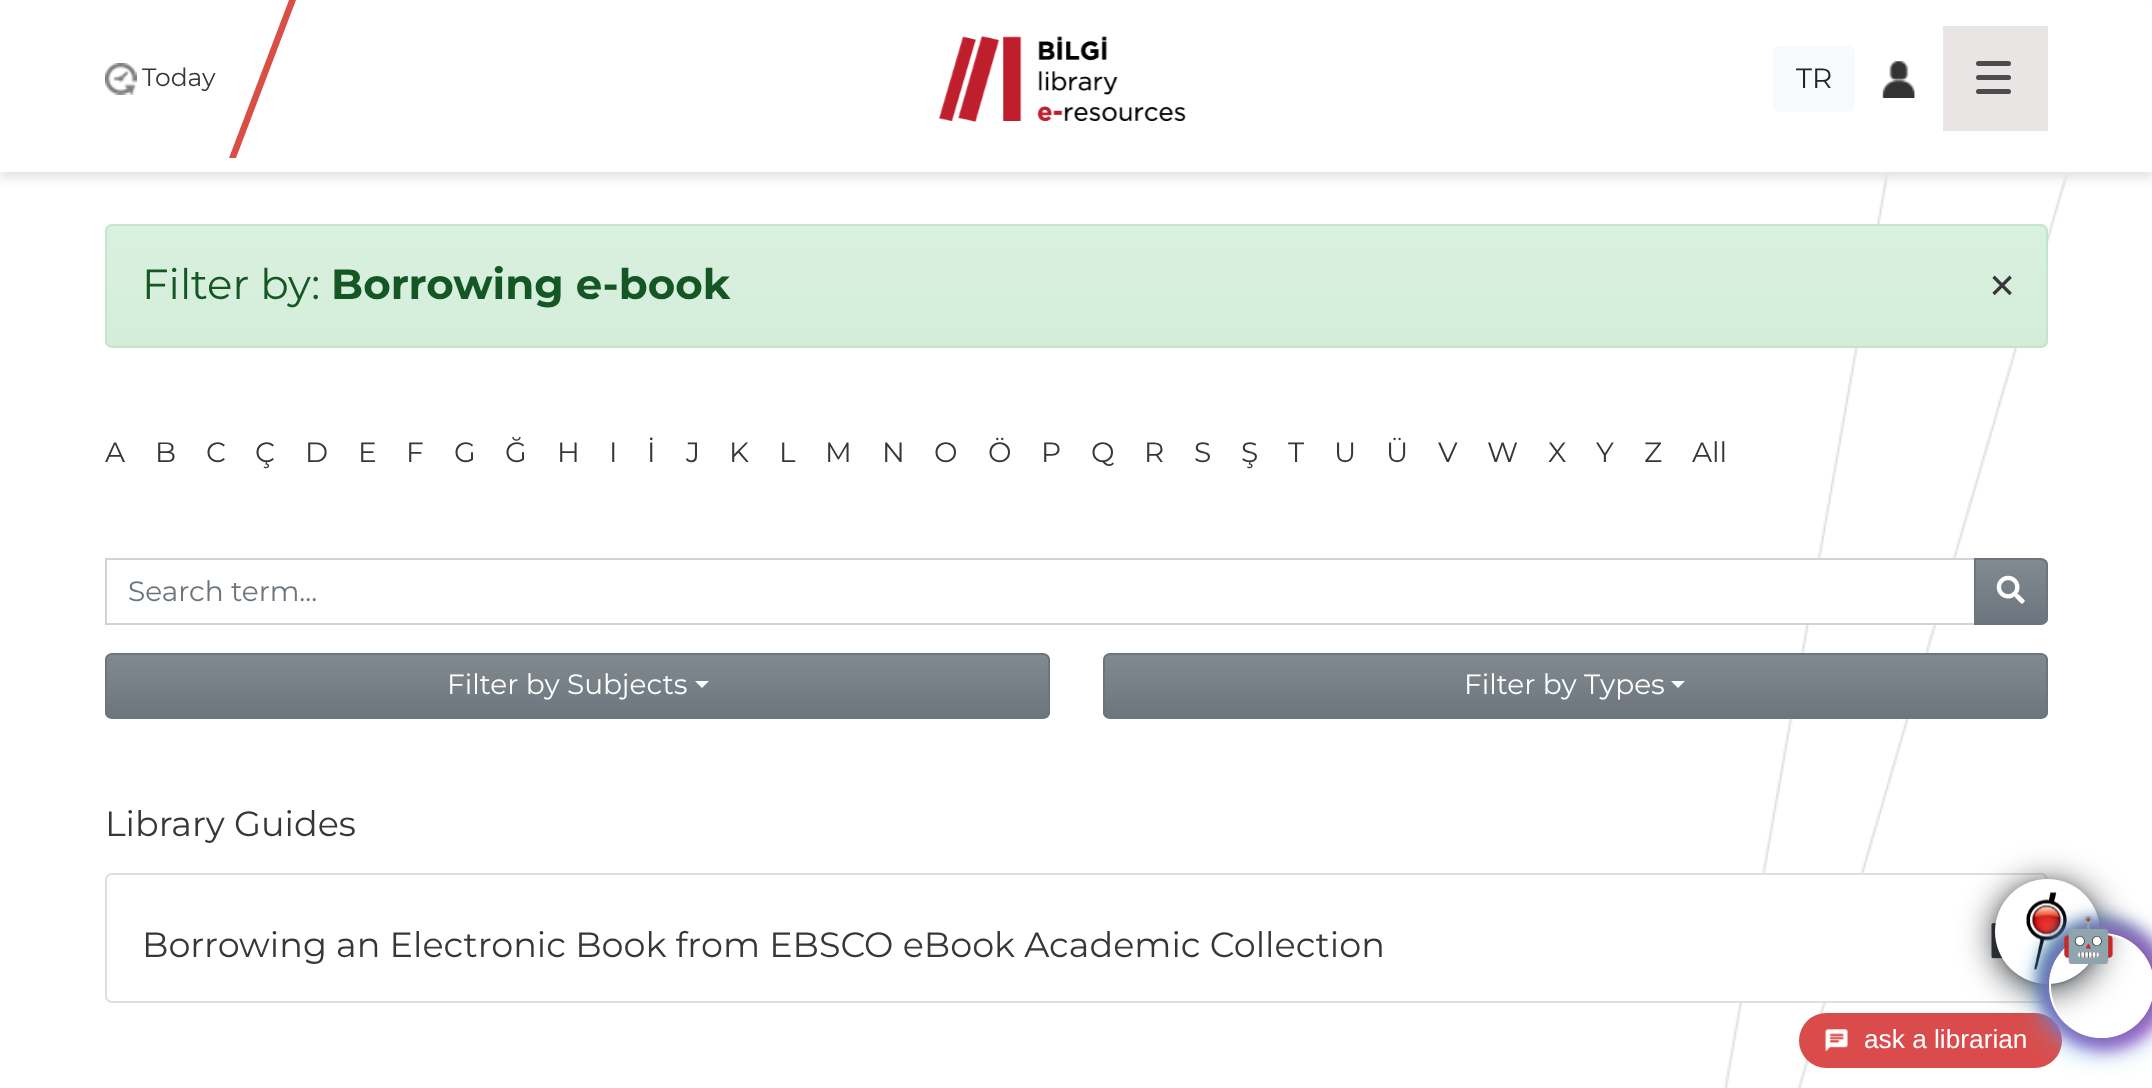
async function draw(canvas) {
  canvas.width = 2152;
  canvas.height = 1088;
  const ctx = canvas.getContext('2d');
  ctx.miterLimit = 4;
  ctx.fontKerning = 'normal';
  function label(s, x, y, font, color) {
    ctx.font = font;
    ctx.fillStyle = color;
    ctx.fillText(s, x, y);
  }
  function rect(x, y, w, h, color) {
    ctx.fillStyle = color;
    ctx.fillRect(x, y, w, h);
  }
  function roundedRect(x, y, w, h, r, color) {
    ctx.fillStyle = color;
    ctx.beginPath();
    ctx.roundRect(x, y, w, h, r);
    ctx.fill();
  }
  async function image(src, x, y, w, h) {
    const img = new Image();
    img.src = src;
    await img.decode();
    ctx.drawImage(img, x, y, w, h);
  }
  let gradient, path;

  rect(0, 0, 2152, 1088, '#fff');
  await image('assets/img1.png', 1723, 172, 346, 916);
  ctx.fillStyle = '#eae5e5';
  ctx.filter = 'blur(4.5px)';
  ctx.beginPath();
  ctx.rect(0, 7, 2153, 172);
  ctx.fill();
  ctx.filter = 'none';
  rect(0, 1, 2152, 171, '#fff');
  await image('assets/img2.png', 105, 63, 32, 32);
  label('Today', 142, 86, '25px Montserrat', '#363739');
  ctx.fillStyle = '#da4f45';
  path = new Path2D('M289 0H296L236 158H229Z');
  ctx.fill(path);
  await image('assets/img3.png', 939, 35, 247, 87);
  ctx.save();
  ctx.beginPath();
  ctx.roundRect(1773, 46, 82, 66, 7);
  ctx.clip();
  gradient = ctx.createLinearGradient(1814, 47, 1814, 110);
  gradient.addColorStop(0, '#f9fafb');
  gradient.addColorStop(1, '#f8f9fa');
  ctx.fillStyle = gradient;
  ctx.fillRect(1773, 47, 82, 63);
  ctx.restore();
  ctx.beginPath();
  ctx.roundRect(1774, 47, 80, 64, 6);
  ctx.strokeStyle = '#f8f9fa';
  ctx.lineWidth = 2;
  ctx.stroke();
  label('TR', 1796, 88, '28px Montserrat', '#212529');
  await image('assets/img4.png', 1882, 61, 33, 37);
  rect(1943, 26, 105, 105, '#eae5e5');
  roundedRect(1976, 61, 35, 5, 2.5, '#4c4c4c');
  roundedRect(1976, 75, 35, 5, 2.5, '#4c4c4c');
  roundedRect(1976, 89, 35, 5, 2.5, '#4c4c4c');
  ctx.save();
  ctx.beginPath();
  ctx.roundRect(105, 224, 1943, 124, 7);
  ctx.clip();
  gradient = ctx.createLinearGradient(1076, 226, 1076, 347);
  gradient.addColorStop(0, '#daf0e0');
  gradient.addColorStop(1, '#d4edda');
  ctx.fillStyle = gradient;
  ctx.fillRect(105, 226, 1943, 121);
  ctx.restore();
  ctx.beginPath();
  ctx.roundRect(106, 225, 1941, 122, 6);
  ctx.strokeStyle = '#c3e6cb';
  ctx.stroke();
  label('Filter by:', 142, 299, '42px Montserrat', '#155724');
  label('Borrowing e-book', 331, 299, 'bold 42px Montserrat', '#155724');
  label('×', 1986, 305, '56px Montserrat', '#363739');
  label('A', 105, 462, '28px Montserrat', '#363739');
  label('B', 155, 462, '28px Montserrat', '#363739');
  label('C', 206, 462, '28px Montserrat', '#363739');
  label('Ç', 255, 462, '28px Montserrat', '#363739');
  label('D', 305, 462, '28px Montserrat', '#363739');
  label('E', 358, 462, '28px Montserrat', '#363739');
  label('F', 406, 462, '28px Montserrat', '#363739');
  label('G', 454, 462, '28px Montserrat', '#363739');
  label('Ğ', 505, 462, '28px Montserrat', '#363739');
  label('H', 557, 462, '28px Montserrat', '#363739');
  label('I', 609, 462, '28px Montserrat', '#363739');
  label('İ', 647, 462, '28px Montserrat', '#363739');
  label('J', 686, 462, '28px Montserrat', '#363739');
  label('K', 729, 462, '28px Montserrat', '#363739');
  label('L', 779, 462, '28px Montserrat', '#363739');
  label('M', 825, 462, '28px Montserrat', '#363739');
  label('N', 882, 462, '28px Montserrat', '#363739');
  label('O', 934, 462, '28px Montserrat', '#363739');
  label('Ö', 988, 462, '28px Montserrat', '#363739');
  label('P', 1041, 462, '28px Montserrat', '#363739');
  label('Q', 1091, 462, '28px Montserrat', '#363739');
  label('R', 1144, 462, '28px Montserrat', '#363739');
  label('S', 1194, 462, '28px Montserrat', '#363739');
  label('Ş', 1241, 462, '28px Montserrat', '#363739');
  label('T', 1288, 462, '28px Montserrat', '#363739');
  label('U', 1334, 462, '28px Montserrat', '#363739');
  label('Ü', 1386, 462, '28px Montserrat', '#363739');
  label('V', 1438, 462, '28px Montserrat', '#363739');
  label('W', 1487, 462, '28px Montserrat', '#363739');
  label('X', 1548, 462, '28px Montserrat', '#363739');
  label('Y', 1596, 462, '28px Montserrat', '#363739');
  label('Z', 1644, 462, '28px Montserrat', '#363739');
  label('All', 1692, 462, '28px Montserrat', '#363739');
  rect(1805, 560, 151, 63, '#fff');
  ctx.strokeStyle = '#ced4da';
  ctx.strokeRect(106, 559, 1869, 65);
  label('Search term...', 128, 601, '28px Montserrat', '#6c757d');
  ctx.save();
  ctx.beginPath();
  ctx.roundRect(1974, 558, 74, 67, [0, 7, 7, 0]);
  ctx.clip();
  gradient = ctx.createLinearGradient(2011, 560, 2011, 623);
  gradient.addColorStop(0, '#828a91');
  gradient.addColorStop(1, '#6c757d');
  ctx.fillStyle = gradient;
  ctx.fillRect(1976, 560, 72, 63);
  ctx.restore();
  ctx.beginPath();
  ctx.roundRect(1975, 559, 72, 65, [0, 6, 6, 0]);
  ctx.strokeStyle = '#6c757d';
  ctx.stroke();
  await image('assets/img5.png', 1996, 575, 29, 29);
  ctx.save();
  ctx.beginPath();
  ctx.roundRect(105, 653, 945, 66, 7);
  ctx.clip();
  gradient = ctx.createLinearGradient(578, 654, 578, 718);
  gradient.addColorStop(0, '#828a91');
  gradient.addColorStop(1, '#6c757d');
  ctx.fillStyle = gradient;
  ctx.fillRect(105, 655, 945, 63);
  ctx.restore();
  ctx.beginPath();
  ctx.roundRect(106, 654, 943, 64, 6);
  ctx.stroke();
  label('Filter by Subjects', 447, 694, '28px Montserrat', '#fff');
  path = new Path2D('M695 681H709L702 688Z');
  ctx.fill(path);
  ctx.save();
  ctx.beginPath();
  ctx.roundRect(1103, 653, 945, 66, 7);
  ctx.clip();
  gradient = ctx.createLinearGradient(1575, 654, 1575, 718);
  gradient.addColorStop(0, '#828a91');
  gradient.addColorStop(1, '#6c757d');
  ctx.fillStyle = gradient;
  ctx.fillRect(1103, 655, 945, 63);
  ctx.restore();
  ctx.beginPath();
  ctx.roundRect(1104, 654, 943, 64, 6);
  ctx.stroke();
  label('Filter by Types', 1464, 694, '28px Montserrat', '#fff');
  path = new Path2D('M1671 681H1685L1678 688Z');
  ctx.fill(path);
  label('Library Guides', 105, 836, '35px Montserrat', '#363739');
  ctx.fillStyle = '#fff';
  ctx.beginPath();
  ctx.roundRect(106, 874, 1941, 128, 6);
  ctx.fill();
  ctx.strokeStyle = '#dfdfdf';
  ctx.stroke();
  label('Borrowing an Electronic Book from EBSCO eBook Academic Collection', 142, 957, '35px Montserrat', '#363739');
  await image('assets/img6.png', 1991, 923, 12, 36);
  ctx.fillStyle = '#0000001f';
  ctx.filter = 'blur(4.5px)';
  ctx.beginPath();
  ctx.roundRect(1995, 880, 105, 105, 52.5);
  ctx.fill();
  ctx.filter = 'none';
  ctx.fillStyle = '#00000033';
  ctx.filter = 'blur(1px)';
  ctx.beginPath();
  ctx.roundRect(1999, 887, 98, 98, 49);
  ctx.fill();
  ctx.filter = 'none';
  roundedRect(1799, 1013, 263, 55, 27.5, '#da4c4c');
  ctx.fillStyle = '#1b1e24e6';
  ctx.filter = 'blur(17.5px)';
  ctx.beginPath();
  ctx.roundRect(1995, 884, 105, 105, 52.5);
  ctx.fill();
  ctx.filter = 'none';
  ctx.fillStyle = '#fff';
  ctx.beginPath();
  ctx.arc(2047.5, 931.5, 52.5, 0, 2 * Math.PI);
  ctx.fill();
  await image('assets/img7.png', 2026, 892, 41, 78);
  ctx.save();
  path = new Path2D('M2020 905H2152V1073H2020ZM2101.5 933C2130.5 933 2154 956.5 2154 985.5C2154 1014.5 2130.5 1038 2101.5 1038C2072.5 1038 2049 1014.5 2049 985.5C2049 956.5 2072.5 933 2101.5 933Z');
  ctx.clip(path, 'evenodd');
  ctx.fillStyle = '#f30bf5';
  ctx.filter = 'blur(9px)';
  ctx.beginPath();
  ctx.roundRect(2048, 933, 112, 112, 56);
  ctx.fill();
  ctx.filter = 'none';
  ctx.restore();
  ctx.save();
  path = new Path2D('M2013 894H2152V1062H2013ZM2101.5 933C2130.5 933 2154 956.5 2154 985.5C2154 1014.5 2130.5 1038 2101.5 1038C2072.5 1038 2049 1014.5 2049 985.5C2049 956.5 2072.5 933 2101.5 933Z');
  ctx.clip(path, 'evenodd');
  ctx.fillStyle = '#1b7d8f';
  ctx.filter = 'blur(9px)';
  ctx.beginPath();
  ctx.roundRect(2041, 922, 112, 112, 56);
  ctx.fill();
  ctx.filter = 'none';
  ctx.restore();
  ctx.save();
  path = new Path2D('M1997 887H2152V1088H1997ZM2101.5 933C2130.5 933 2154 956.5 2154 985.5C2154 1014.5 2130.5 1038 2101.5 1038C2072.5 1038 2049 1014.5 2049 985.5C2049 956.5 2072.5 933 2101.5 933Z');
  ctx.clip(path, 'evenodd');
  ctx.fillStyle = '#5acee3';
  ctx.filter = 'blur(16px)';
  ctx.beginPath();
  ctx.roundRect(2046, 936, 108, 109, 54);
  ctx.fill();
  ctx.filter = 'none';
  ctx.restore();
  ctx.save();
  path = new Path2D('M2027 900H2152V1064H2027ZM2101.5 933C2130.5 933 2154 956.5 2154 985.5C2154 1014.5 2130.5 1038 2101.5 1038C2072.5 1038 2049 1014.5 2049 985.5C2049 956.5 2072.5 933 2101.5 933Z');
  ctx.clip(path, 'evenodd');
  ctx.fillStyle = '#aab3d2';
  ctx.filter = 'blur(9px)';
  ctx.beginPath();
  ctx.roundRect(2055, 928, 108, 108, 54);
  ctx.fill();
  ctx.filter = 'none';
  ctx.restore();
  ctx.save();
  path = new Path2D('M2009 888H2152V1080H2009ZM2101.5 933C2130.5 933 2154 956.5 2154 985.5C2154 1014.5 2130.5 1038 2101.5 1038C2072.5 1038 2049 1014.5 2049 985.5C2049 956.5 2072.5 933 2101.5 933Z');
  ctx.clip(path, 'evenodd');
  ctx.fillStyle = '#823ca6';
  ctx.filter = 'blur(13px)';
  ctx.beginPath();
  ctx.roundRect(2049, 928, 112, 112, 56);
  ctx.fill();
  ctx.filter = 'none';
  ctx.restore();
  ctx.beginPath();
  ctx.arc(2101.5, 985.5, 51.5, 0, 2 * Math.PI);
  ctx.strokeStyle = '#fff';
  ctx.stroke();
  label('🤖', 2061, 955, 'bold 44px Noto Color Emoji', '#fff');
  await image('assets/img8.png', 1825, 1029, 23, 23);
  label('ask a librarian', 1864, 1048, '26.25px Liberation Sans', '#fff');
}

draw(document.querySelector('canvas'));
